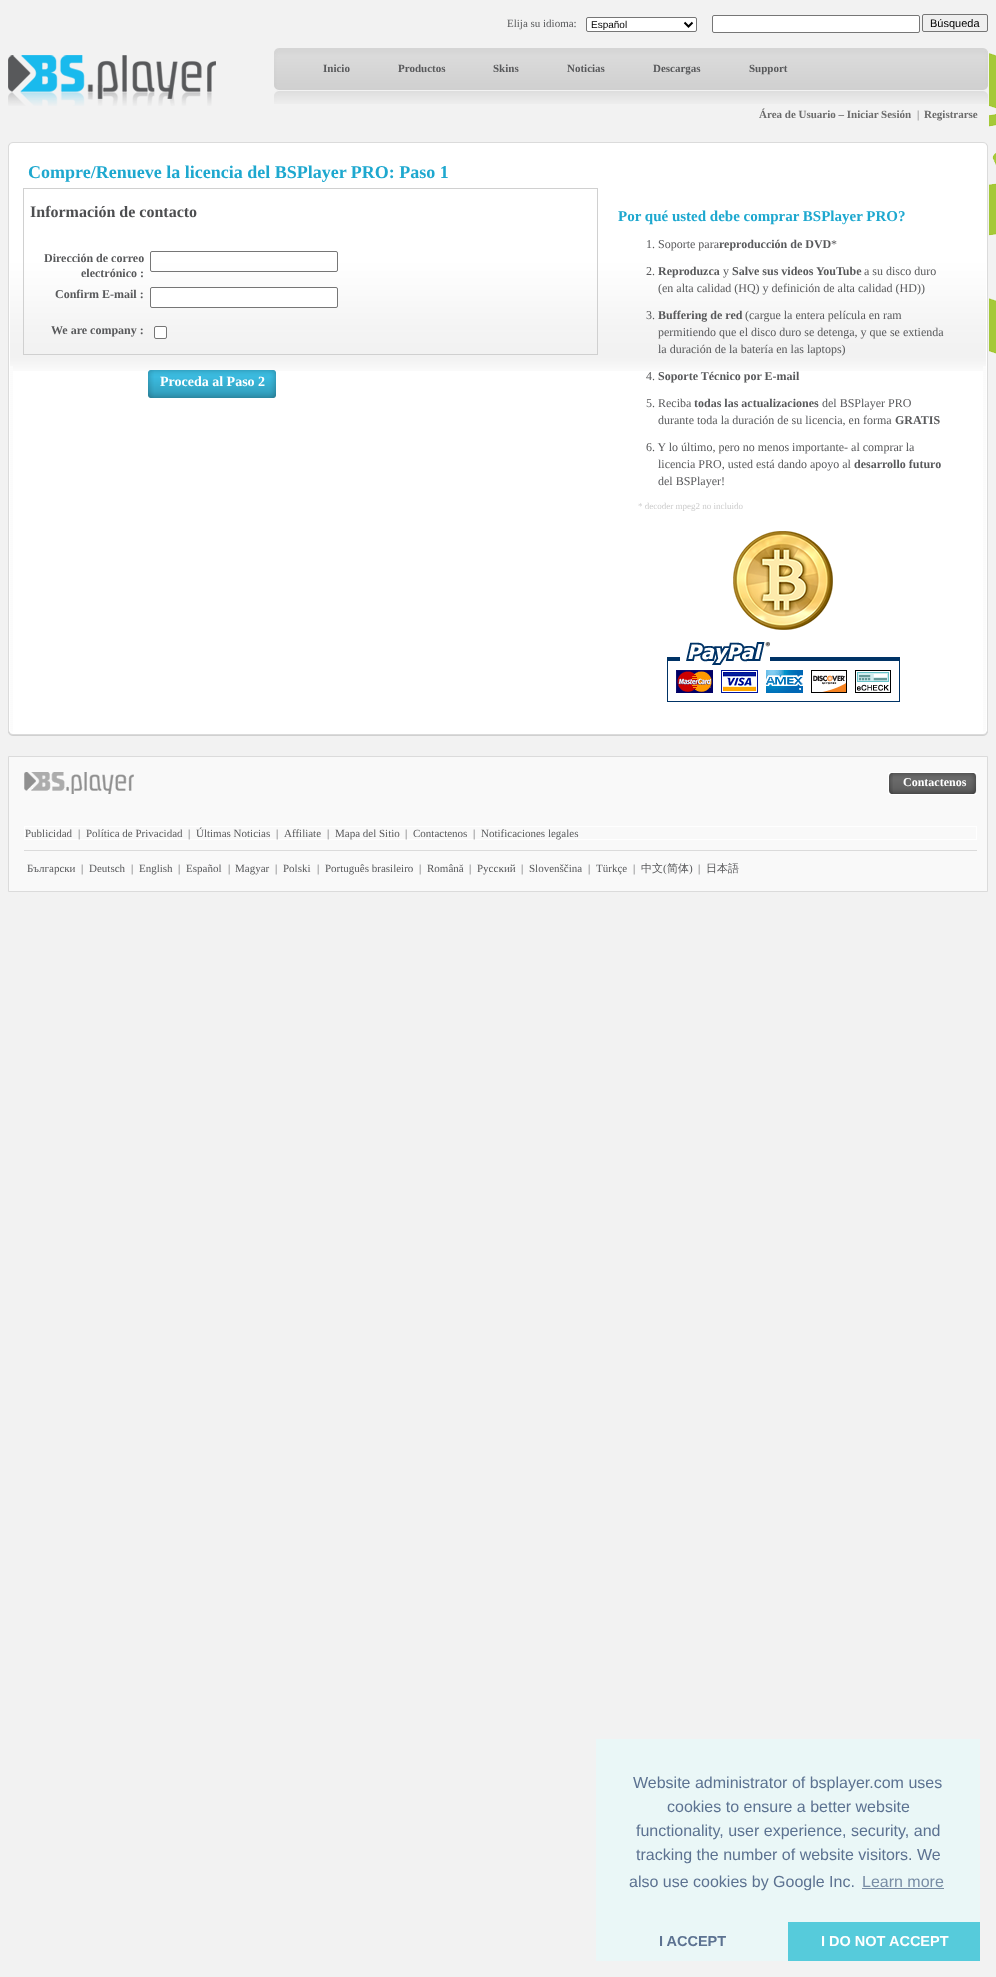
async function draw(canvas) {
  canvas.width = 996;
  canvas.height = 1977;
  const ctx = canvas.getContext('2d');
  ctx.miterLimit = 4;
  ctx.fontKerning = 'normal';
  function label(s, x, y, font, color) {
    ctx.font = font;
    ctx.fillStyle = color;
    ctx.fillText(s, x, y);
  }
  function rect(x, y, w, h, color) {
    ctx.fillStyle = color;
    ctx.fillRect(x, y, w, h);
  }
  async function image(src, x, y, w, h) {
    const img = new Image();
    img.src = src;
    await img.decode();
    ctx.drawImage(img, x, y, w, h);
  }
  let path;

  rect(0, 0, 996, 1977, '#f2f2f2');
  await image('assets/img1.png', 8, 55, 208, 51);
  label('Elija su idioma:', 507, 27, '11px Liberation Serif', '#58595b');
  ctx.fillStyle = '#fff';
  ctx.beginPath();
  ctx.roundRect(586.5, 17.5, 110, 14, 1.5);
  ctx.fill();
  ctx.strokeStyle = '#767676';
  ctx.stroke();
  path = new Path2D('M684.5 22.5L688.5 26.5L692.5 22.5');
  ctx.strokeStyle = '#000';
  ctx.lineWidth = 2;
  ctx.stroke(path);
  label('Español', 591, 28, '10px Liberation Sans', '#000');
  ctx.fillStyle = '#fff';
  ctx.beginPath();
  ctx.roundRect(712.5, 15.5, 207, 17, 1.5);
  ctx.fill();
  ctx.strokeStyle = '#767676';
  ctx.lineWidth = 1;
  ctx.stroke();
  ctx.fillStyle = '#efefef';
  ctx.beginPath();
  ctx.roundRect(922.5, 14.5, 65, 17, 1.5);
  ctx.fill();
  ctx.stroke();
  label('Búsqueda', 930, 27, '11px Liberation Sans', '#000');
  await image('assets/img2.png', 274, 48, 5, 56);
  await image('assets/img3.png', 983, 48, 5, 56);
  await image('assets/img4.png', 279, 48, 704, 56);
  label('Inicio', 323, 72, 'bold 11px Liberation Serif', '#58595b');
  label('Productos', 398, 72, 'bold 11px Liberation Serif', '#58595b');
  label('Skins', 493, 72, 'bold 11px Liberation Serif', '#58595b');
  label('Noticias', 567, 72, 'bold 11px Liberation Serif', '#58595b');
  label('Descargas', 653, 72, 'bold 11px Liberation Serif', '#58595b');
  label('Support', 749, 72, 'bold 11px Liberation Serif', '#58595b');
  label('Área de Usuario – Iniciar Sesión', 759, 118, 'bold 11px Liberation Serif', '#6b6b6b');
  label('|', 917, 118, '11px Liberation Serif', '#6b6b6b');
  label('Registrarse', 924, 118, 'bold 11px Liberation Serif', '#6b6b6b');
  await image('assets/img5.png', 989, 53, 7, 301);
  rect(13, 371, 970, 363, '#fff');
  await image('assets/img6.png', 13, 142, 970, 229);
  await image('assets/img7.png', 13, 734, 970, 2);
  await image('assets/img8.png', 8, 366, 5, 365);
  await image('assets/img9.png', 983, 366, 5, 365);
  await image('assets/img10.png', 8, 142, 5, 224);
  await image('assets/img11.png', 983, 142, 5, 224);
  await image('assets/img12.png', 8, 731, 5, 5);
  await image('assets/img13.png', 983, 731, 5, 5);
  label('Compre/Renueve la licencia del BSPlayer PRO: Paso 1', 28, 178, 'bold 18px Liberation Serif', '#1ea8cf');
  ctx.strokeStyle = '#d0d0d0';
  ctx.strokeRect(23.5, 188.5, 574, 166);
  label('Información de contacto', 30, 217, 'bold 16px Liberation Serif', '#4d4e50');
  label('Dirección de correo', 44, 262, 'bold 12px Liberation Serif', '#58595b');
  label('electrónico :', 81, 277, 'bold 12px Liberation Serif', '#58595b');
  ctx.beginPath();
  ctx.roundRect(150.5, 251.5, 187, 20, 1.5);
  ctx.strokeStyle = '#767676';
  ctx.stroke();
  label('Confirm E-mail :', 55, 298, 'bold 12px Liberation Serif', '#58595b');
  ctx.fillStyle = '#fff';
  ctx.beginPath();
  ctx.roundRect(150.5, 287.5, 187, 20, 1.5);
  ctx.fill();
  ctx.stroke();
  label('We are company :', 51, 334, 'bold 12px Liberation Serif', '#58595b');
  ctx.fillStyle = '#fff';
  ctx.beginPath();
  ctx.roundRect(154.5, 326.5, 12, 12, 1.5);
  ctx.fill();
  ctx.stroke();
  await image('assets/img14.png', 148, 370, 6, 28);
  await image('assets/img15.png', 154, 370, 122, 28);
  label('Proceda al Paso 2', 160, 386, 'bold 14px Liberation Serif', '#fff');
  label('Por qué usted debe comprar BSPlayer PRO?', 618, 221, 'bold 15px Liberation Serif', '#1ea8cf');
  label('1. Soporte para', 646, 248, '12px Liberation Serif', '#58595b');
  label('reproducción de DVD', 719, 248, 'bold 12px Liberation Serif', '#58595b');
  label('*', 831, 248, '12px Liberation Serif', '#58595b');
  label('2.', 646, 275, '12px Liberation Serif', '#58595b');
  label('Reproduzca', 658, 275, 'bold 12px Liberation Serif', '#58595b');
  label('y', 723, 275, '12px Liberation Serif', '#58595b');
  label('Salve sus videos YouTube', 732, 275, 'bold 12px Liberation Serif', '#58595b');
  label('a su disco duro', 864, 275, '12px Liberation Serif', '#58595b');
  label('(en alta calidad (HQ) y definición de alta calidad (HD))', 658, 292, '12px Liberation Serif', '#58595b');
  label('3.', 646, 319, '12px Liberation Serif', '#58595b');
  label('Buffering de red', 658, 319, 'bold 12px Liberation Serif', '#58595b');
  label('(cargue la entera película en ram', 745, 319, '12px Liberation Serif', '#58595b');
  label('permitiendo que el disco duro se detenga, y que se extienda', 658, 336, '12px Liberation Serif', '#58595b');
  label('la duración de la batería en las laptops)', 658, 353, '12px Liberation Serif', '#58595b');
  label('4.', 646, 380, '12px Liberation Serif', '#58595b');
  label('Soporte Técnico por E-mail', 658, 380, 'bold 12px Liberation Serif', '#58595b');
  label('5. Reciba', 646, 407, '12px Liberation Serif', '#58595b');
  label('todas las actualizaciones', 694, 407, 'bold 12px Liberation Serif', '#58595b');
  label('del BSPlayer PRO', 822, 407, '12px Liberation Serif', '#58595b');
  label('durante toda la duración de su licencia, en forma', 658, 424, '12px Liberation Serif', '#58595b');
  label('GRATIS', 895, 424, 'bold 12px Liberation Serif', '#58595b');
  label('6. Y lo último, pero no menos importante- al comprar la', 646, 451, '12px Liberation Serif', '#58595b');
  label('licencia PRO, usted está dando apoyo al', 658, 468, '12px Liberation Serif', '#58595b');
  label('desarrollo futuro', 854, 468, 'bold 12px Liberation Serif', '#58595b');
  label('del BSPlayer!', 658, 485, '12px Liberation Serif', '#58595b');
  label('* decoder mpeg2 no incluido', 638, 509, '9px Liberation Serif', '#ccc');
  await image('assets/img16.png', 733, 531, 100, 99);
  await image('assets/img17.png', 667, 642, 233, 60);
  ctx.fillStyle = '#f9f9f9';
  ctx.beginPath();
  ctx.rect(8.5, 756.5, 979, 135);
  ctx.fill();
  ctx.strokeStyle = '#dbdbdb';
  ctx.stroke();
  await image('assets/img18.png', 24, 772, 110, 22);
  await image('assets/img19.png', 888, 772, 5, 23);
  await image('assets/img20.png', 893, 772, 84, 23);
  label('Contactenos', 903, 786, 'bold 12px Liberation Serif', '#fff');
  ctx.strokeStyle = '#fff';
  ctx.strokeRect(24.5, 826.5, 952, 13);
  label('Publicidad', 25, 837, '11px Liberation Serif', '#58595b');
  label('|', 78, 837, '11px Liberation Serif', '#58595b');
  label('Política de Privacidad', 86, 837, '11px Liberation Serif', '#58595b');
  label('|', 188, 837, '11px Liberation Serif', '#58595b');
  label('Últimas Noticias', 196, 837, '11px Liberation Serif', '#58595b');
  label('|', 276, 837, '11px Liberation Serif', '#58595b');
  label('Affiliate', 284, 837, '11px Liberation Serif', '#58595b');
  label('|', 327, 837, '11px Liberation Serif', '#58595b');
  label('Mapa del Sitio', 335, 837, '11px Liberation Serif', '#58595b');
  label('|', 405, 837, '11px Liberation Serif', '#58595b');
  label('Contactenos', 413, 837, '11px Liberation Serif', '#58595b');
  label('|', 473, 837, '11px Liberation Serif', '#58595b');
  label('Notificaciones legales', 481, 837, '11px Liberation Serif', '#58595b');
  rect(24, 850, 953, 1, '#dbdbdb');
  label('Български', 27, 872, '11px Liberation Serif', '#58595b');
  label('|', 81, 872, '11px Liberation Serif', '#58595b');
  label('Deutsch', 89, 872, '11px Liberation Serif', '#58595b');
  label('|', 131, 872, '11px Liberation Serif', '#58595b');
  label('English', 139, 872, '11px Liberation Serif', '#58595b');
  label('|', 178, 872, '11px Liberation Serif', '#58595b');
  label('Español', 186, 872, '11px Liberation Serif', '#58595b');
  label('|', 228, 872, '11px Liberation Serif', '#58595b');
  label('Magyar', 235, 872, '11px Liberation Serif', '#58595b');
  label('|', 275, 872, '11px Liberation Serif', '#58595b');
  label('Polski', 283, 872, '11px Liberation Serif', '#58595b');
  label('|', 317, 872, '11px Liberation Serif', '#58595b');
  label('Português brasileiro', 325, 872, '11px Liberation Serif', '#58595b');
  label('|', 419, 872, '11px Liberation Serif', '#58595b');
  label('Română', 427, 872, '11px Liberation Serif', '#58595b');
  label('|', 469, 872, '11px Liberation Serif', '#58595b');
  label('Pyccĸий', 477, 872, '11px Liberation Serif', '#58595b');
  label('|', 521, 872, '11px Liberation Serif', '#58595b');
  label('Slovenščina', 529, 872, '11px Liberation Serif', '#58595b');
  label('|', 588, 872, '11px Liberation Serif', '#58595b');
  label('Türkçe', 596, 872, '11px Liberation Serif', '#58595b');
  label('|', 633, 872, '11px Liberation Serif', '#58595b');
  label('中文', 641, 872, '500 11px WenQuanYi Zen Hei', '#58595b');
  label('(', 663, 872, '11px Liberation Serif', '#58595b');
  label('简体', 667, 872, '500 11px WenQuanYi Zen Hei', '#58595b');
  label(')', 689, 872, '11px Liberation Serif', '#58595b');
  label('|', 698, 872, '11px Liberation Serif', '#58595b');
  label('日本語', 706, 872, '500 11px WenQuanYi Zen Hei', '#58595b');
  rect(596, 1739, 384, 222, '#eaf7f7');
  label('Website administrator of bsplayer.com uses', 633, 1788, '16px Liberation Sans', '#5c7291');
  label('cookies to ensure a better website', 667, 1812, '16px Liberation Sans', '#5c7291');
  label('functionality, user experience, security, and', 636, 1836, '16px Liberation Sans', '#5c7291');
  label('tracking the number of website visitors. We', 636, 1860, '16px Liberation Sans', '#5c7291');
  label('also use cookies by Google Inc.', 629, 1887, '16px Liberation Sans', '#5c7291');
  label('Learn more', 862, 1887, '16px Liberation Sans', '#788da5');
  rect(862, 1888, 82, 1, '#788da5');
  label('I ACCEPT', 659, 1946, 'bold 14.5px Liberation Sans', '#5c7291');
  rect(788, 1922, 192, 39, '#56cbdb');
  label('I DO NOT ACCEPT', 821, 1946, 'bold 14.5px Liberation Sans', '#fff');
}

draw(document.querySelector('canvas'));
